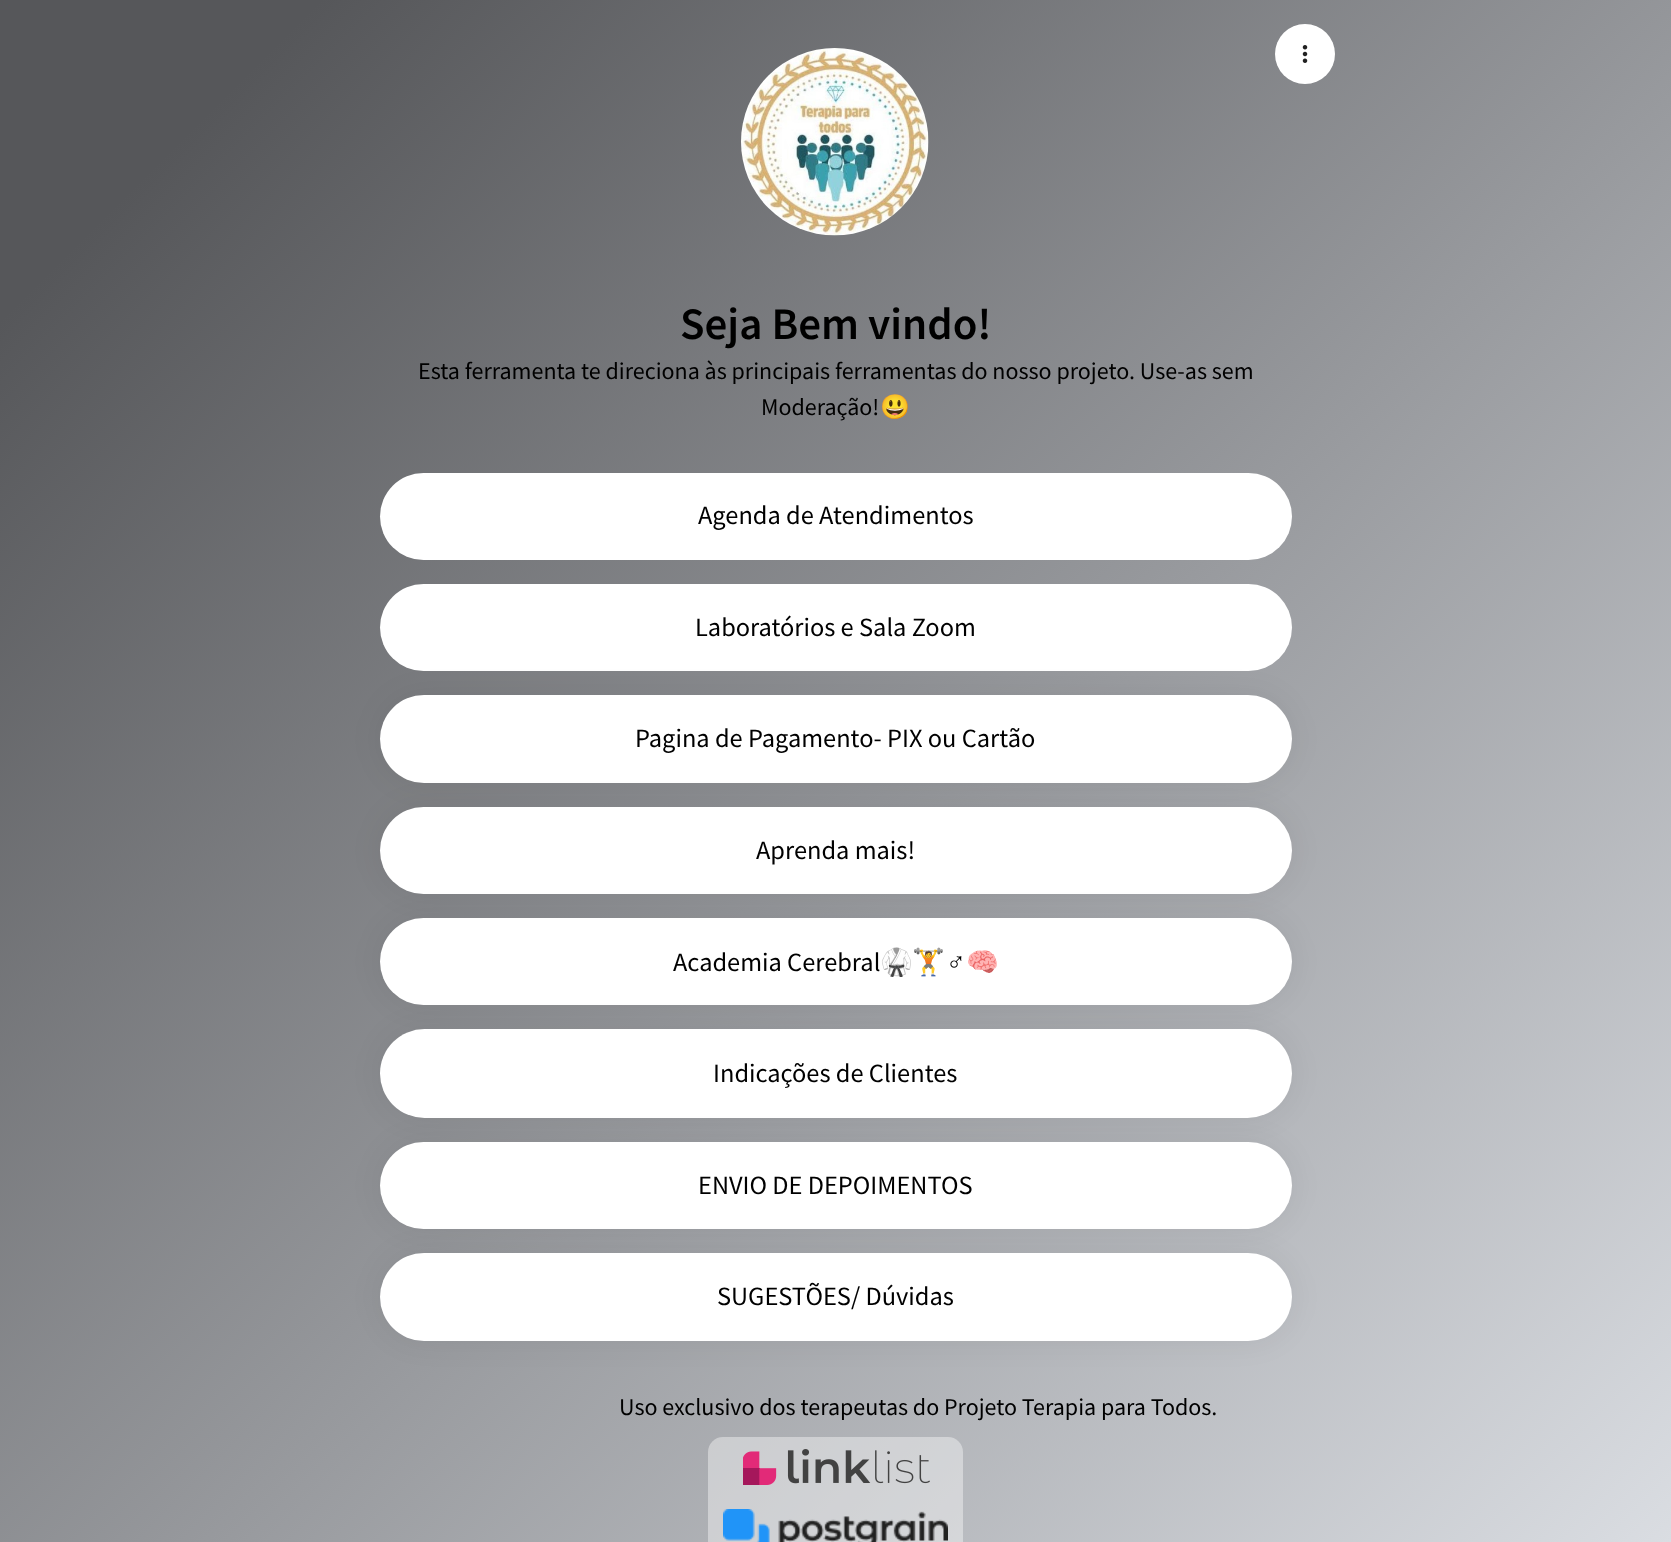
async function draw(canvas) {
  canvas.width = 1671;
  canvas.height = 1542;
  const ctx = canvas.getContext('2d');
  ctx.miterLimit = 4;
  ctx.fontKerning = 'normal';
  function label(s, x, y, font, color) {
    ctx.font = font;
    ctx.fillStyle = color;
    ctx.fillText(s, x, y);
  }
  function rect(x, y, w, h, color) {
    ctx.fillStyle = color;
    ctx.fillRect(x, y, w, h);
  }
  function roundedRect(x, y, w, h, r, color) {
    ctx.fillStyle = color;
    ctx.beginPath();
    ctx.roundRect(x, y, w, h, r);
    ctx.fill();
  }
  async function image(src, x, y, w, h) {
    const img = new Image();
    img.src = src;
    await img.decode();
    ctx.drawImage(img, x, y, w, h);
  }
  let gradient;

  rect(0, 0, 1671, 1542, '#fff');
  gradient = ctx.createLinearGradient(32, -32, 1639, 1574);
  gradient.addColorStop(0.1, '#56575a');
  gradient.addColorStop(1, '#dadde2');
  ctx.fillStyle = gradient;
  ctx.fillRect(0, 0, 1671, 1542);
  ctx.fillStyle = '#fff';
  ctx.beginPath();
  ctx.arc(1305, 54, 30, 0, 2 * Math.PI);
  ctx.fill();
  await image('assets/img1.png', 1302, 45, 6, 18);
  await image('assets/img2.png', 741, 48, 188, 188);
  label('Seja Bem vindo!', 680, 339, '600 45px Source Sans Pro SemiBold', '#000');
  label('Esta ferramenta te direciona às principais ferramentas do nosso projeto. Use-as sem', 418, 379, '24px Source Sans Pro', '#000');
  label('Moderação!', 761, 415, '24px Source Sans Pro', '#000');
  label('😃', 880, 415, '24px Noto Color Emoji', '#000');
  roundedRect(380, 473, 912, 87, 43.5, '#fff');
  label('Agenda de Atendimentos', 698, 524, '26.4px Source Sans Pro', '#000');
  roundedRect(380, 584, 912, 87, 43.5, '#fff');
  label('Laboratórios e Sala Zoom', 695, 636, '26.4px Source Sans Pro', '#000');
  ctx.fillStyle = '#0000000f';
  ctx.filter = 'blur(15px)';
  ctx.beginPath();
  ctx.roundRect(380, 695, 912, 88, 44);
  ctx.fill();
  ctx.filter = 'none';
  roundedRect(380, 695, 912, 88, 44, '#fff');
  label('Pagina de Pagamento- PIX ou Cartão', 635, 747, '26.4px Source Sans Pro', '#000');
  ctx.fillStyle = '#0000000f';
  ctx.filter = 'blur(15px)';
  ctx.beginPath();
  ctx.roundRect(380, 807, 912, 87, 43.5);
  ctx.fill();
  ctx.filter = 'none';
  roundedRect(380, 807, 912, 87, 43.5, '#fff');
  label('Aprenda mais!', 756, 859, '26.4px Source Sans Pro', '#000');
  ctx.fillStyle = '#0000000f';
  ctx.filter = 'blur(15px)';
  ctx.beginPath();
  ctx.roundRect(380, 918, 912, 87, 43.5);
  ctx.fill();
  ctx.filter = 'none';
  roundedRect(380, 918, 912, 87, 43.5, '#fff');
  label('Academia Cerebral', 673, 971, '26.4px Source Sans Pro', '#000');
  label('🥋🏋', 880, 971, '26.4px Noto Color Emoji', '#000');
  label('♂', 946, 971, '26.4px Liberation Sans', '#000');
  label('🧠', 966, 971, '26.4px Noto Color Emoji', '#000');
  ctx.fillStyle = '#0000000f';
  ctx.filter = 'blur(15px)';
  ctx.beginPath();
  ctx.roundRect(380, 1029, 912, 89, 44.5);
  ctx.fill();
  ctx.filter = 'none';
  roundedRect(380, 1029, 912, 89, 44.5, '#fff');
  label('Indicações de Clientes', 713, 1082, '26.4px Source Sans Pro', '#000');
  ctx.fillStyle = '#0000000f';
  ctx.filter = 'blur(15px)';
  ctx.beginPath();
  ctx.roundRect(380, 1142, 912, 87, 43.5);
  ctx.fill();
  ctx.filter = 'none';
  roundedRect(380, 1142, 912, 87, 43.5, '#fff');
  label('ENVIO DE DEPOIMENTOS', 698, 1194, '26.4px Source Sans Pro', '#000');
  ctx.fillStyle = '#0000000f';
  ctx.filter = 'blur(15px)';
  ctx.beginPath();
  ctx.roundRect(380, 1253, 912, 88, 44);
  ctx.fill();
  ctx.filter = 'none';
  roundedRect(380, 1253, 912, 88, 44, '#fff');
  label('SUGESTÕES/ Dúvidas', 717, 1305, '26.4px Source Sans Pro', '#000');
  label('Uso exclusivo dos terapeutas do Projeto Terapia para Todos.', 619, 1415, '24px Source Sans Pro', '#000');
  ctx.fillStyle = '#ffffff66';
  ctx.beginPath();
  ctx.roundRect(708, 1437, 255, 105, [15, 15, 0, 0]);
  ctx.fill();
  await image('assets/img3.png', 743, 1449, 187, 36);
  await image('assets/img4.png', 723, 1509, 225, 33);
}

draw(document.querySelector('canvas'));
